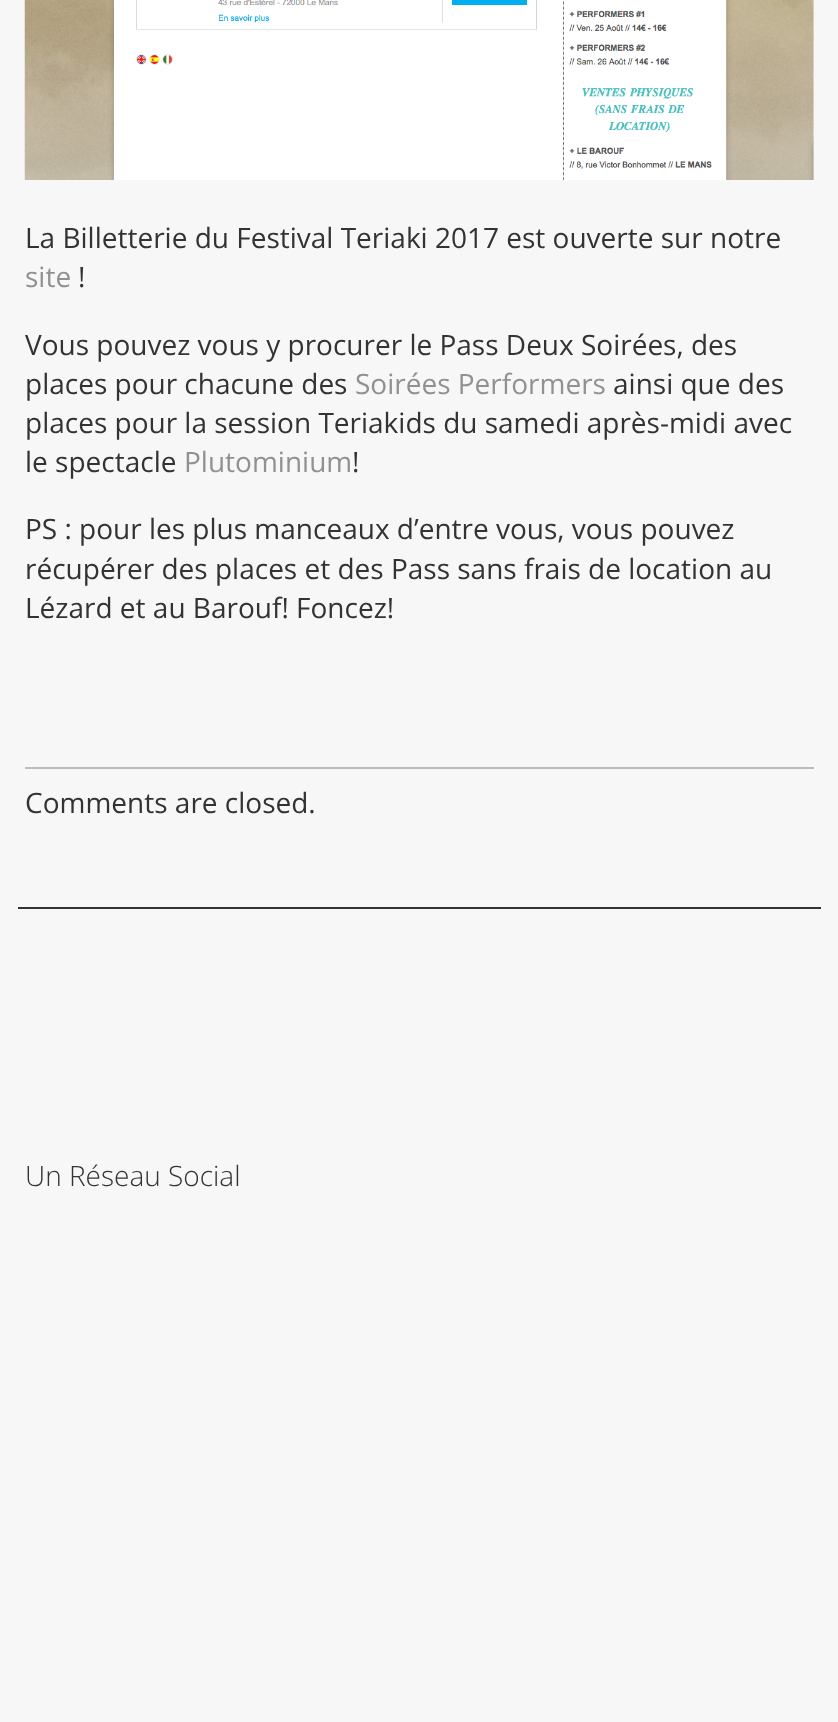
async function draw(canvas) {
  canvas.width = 838;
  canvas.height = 1722;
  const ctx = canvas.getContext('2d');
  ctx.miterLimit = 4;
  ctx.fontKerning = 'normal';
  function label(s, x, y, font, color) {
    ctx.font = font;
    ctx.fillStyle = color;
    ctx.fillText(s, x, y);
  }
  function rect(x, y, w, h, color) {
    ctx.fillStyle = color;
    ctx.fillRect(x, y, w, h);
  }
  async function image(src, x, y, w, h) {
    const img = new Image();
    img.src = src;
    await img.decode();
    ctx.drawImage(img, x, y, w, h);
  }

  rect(0, 0, 838, 1722, '#f7f7f7');
  await image('assets/img1.png', 24, 0, 790, 180);
  label('La Billetterie du Festival Teriaki 2017 est ouverte sur notre', 25, 248, '28px Open Sans', '#333');
  label('site', 25, 287, '28px Open Sans', '#919191');
  label('!', 78, 287, '28px Open Sans', '#333');
  label('Vous pouvez vous y procurer le Pass Deux Soirées, des', 25, 355, '28px Open Sans', '#333');
  label('places pour chacune des', 25, 394, '28px Open Sans', '#333');
  label('Soirées Performers', 355, 394, '28px Open Sans', '#919191');
  label('ainsi que des', 613, 394, '28px Open Sans', '#333');
  label('places pour la session Teriakids du samedi après-midi avec', 25, 433, '28px Open Sans', '#333');
  label('le spectacle', 25, 472, '28px Open Sans', '#333');
  label('Plutominium', 184, 472, '28px Open Sans', '#919191');
  label('!', 352, 472, '28px Open Sans', '#333');
  label('PS : pour les plus manceaux d’entre vous, vous pouvez', 25, 539, '28px Open Sans', '#333');
  label('récupérer des places et des Pass sans frais de location au', 25, 579, '28px Open Sans', '#333');
  label('Lézard et au Barouf! Foncez!', 25, 618, '28px Open Sans', '#333');
  rect(25, 767, 789, 2, '#bcbcbc');
  label('Comments are closed.', 25, 813, '28px Open Sans', '#333');
  rect(18, 907, 803, 2, '#333');
  label('Un Réseau Social', 25, 1186, '300 28px Open Sans', '#333');
}

draw(document.querySelector('canvas'));
